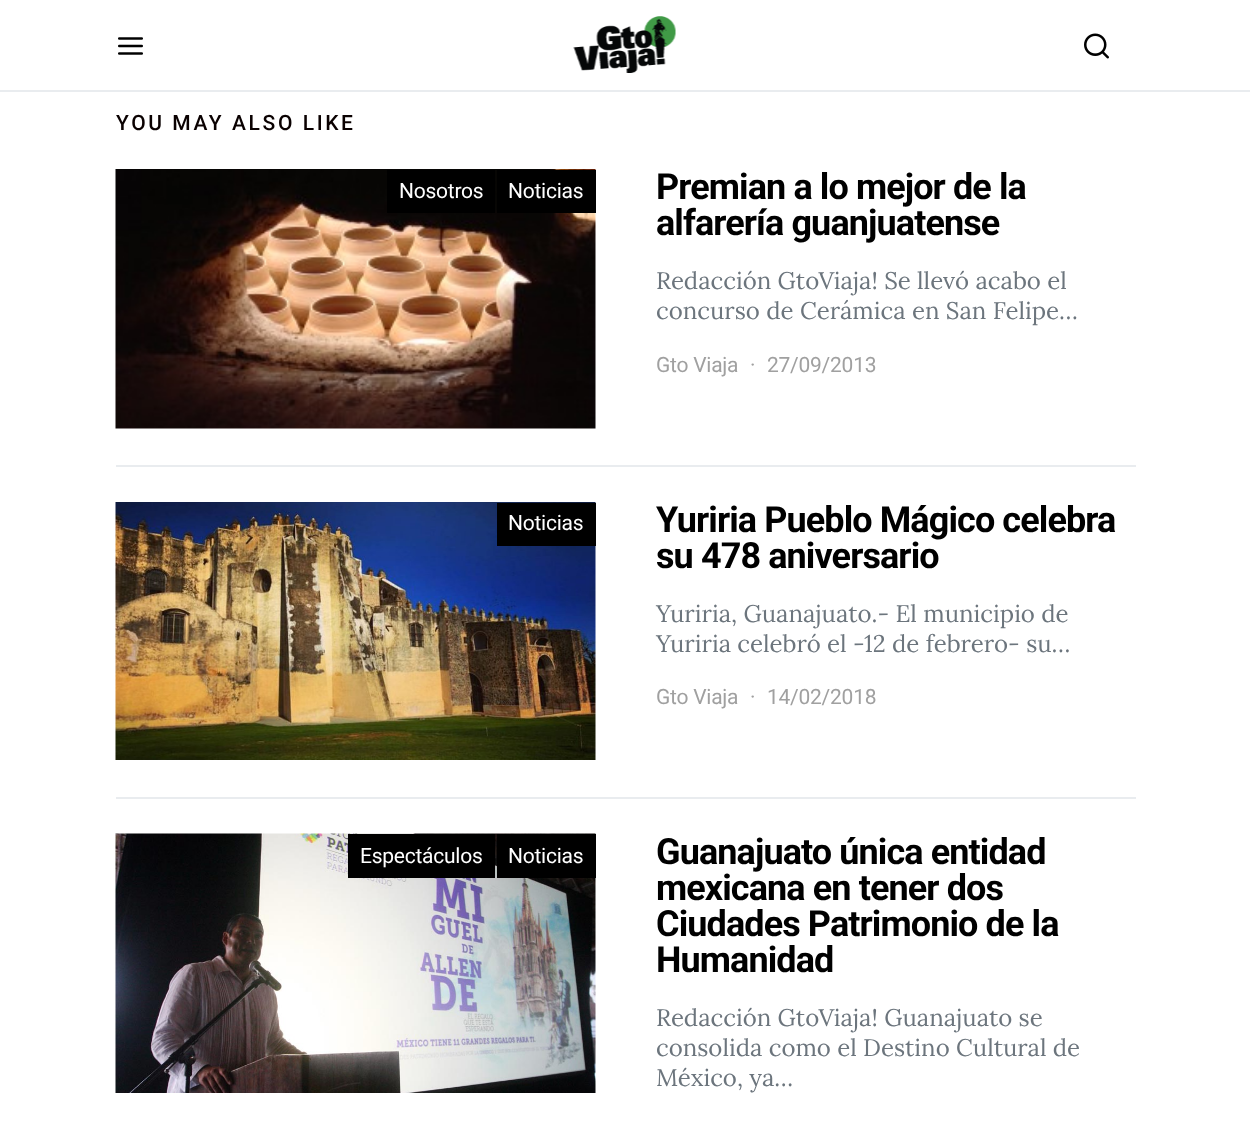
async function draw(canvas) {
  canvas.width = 1250;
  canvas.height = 1130;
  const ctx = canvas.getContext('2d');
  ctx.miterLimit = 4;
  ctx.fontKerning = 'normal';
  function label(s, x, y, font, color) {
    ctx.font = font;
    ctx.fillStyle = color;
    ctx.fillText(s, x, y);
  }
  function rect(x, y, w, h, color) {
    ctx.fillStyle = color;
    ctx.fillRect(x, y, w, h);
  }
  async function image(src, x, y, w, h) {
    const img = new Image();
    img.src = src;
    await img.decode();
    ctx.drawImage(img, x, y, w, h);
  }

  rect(0, 0, 1250, 1130, '#fff');
  rect(0, 90, 1250, 2, '#e9ecef');
  await image('assets/img1.png', 118, 37, 25, 18);
  await image('assets/img2.png', 573, 16, 103, 57);
  await image('assets/img3.png', 1084, 33, 25, 26);
  ctx.letterSpacing = '2.6px';
  label('YOU MAY ALSO LIKE', 116, 130, '500 21px Roboto', '#0a0101');
  await image('assets/img4.png', 115, 169, 481, 260);
  rect(387, 170, 108, 43, '#000');
  ctx.letterSpacing = '-0.25px';
  label('Nosotros', 399, 198, '21px Roboto', '#fff');
  rect(497, 170, 99, 43, '#000');
  label('Noticias', 508, 198, '21px Roboto', '#fff');
  ctx.letterSpacing = '-0.9px';
  label('Premian a lo mejor de la', 656, 199, 'bold 36px Roboto', '#000');
  label('alfarería guanjuatense', 656, 235, 'bold 36px Roboto', '#000');
  ctx.letterSpacing = '0px';
  label('Redacción GtoViaja! Se llevó acabo el', 656, 289, '24px Lora', '#6c757d');
  label('concurso de Cerámica en San Felipe…', 656, 319, '24px Lora', '#6c757d');
  ctx.letterSpacing = '-0.25px';
  label('Gto Viaja', 656, 372, '21px Roboto', '#a0a0a0');
  label('·', 750, 372, '21px Roboto', '#a0a0a0');
  label('27/09/2013', 767, 372, '21px Roboto', '#a0a0a0');
  rect(116, 465, 1020, 2, '#e9ecef');
  await image('assets/img5.png', 115, 502, 481, 258);
  rect(497, 503, 99, 43, '#000');
  label('Noticias', 508, 530, '21px Roboto', '#fff');
  ctx.letterSpacing = '-0.9px';
  label('Yuriria Pueblo Mágico celebra', 656, 532, 'bold 36px Roboto', '#000');
  label('su 478 aniversario', 656, 568, 'bold 36px Roboto', '#000');
  ctx.letterSpacing = '0px';
  label('Yuriria, Guanajuato.- El municipio de', 656, 622, '24px Lora', '#6c757d');
  label('Yuriria celebró el -12 de febrero- su…', 656, 652, '24px Lora', '#6c757d');
  ctx.letterSpacing = '-0.25px';
  label('Gto Viaja', 656, 704, '21px Roboto', '#a0a0a0');
  label('·', 750, 704, '21px Roboto', '#a0a0a0');
  label('14/02/2018', 767, 704, '21px Roboto', '#a0a0a0');
  rect(116, 797, 1020, 2, '#e9ecef');
  await image('assets/img6.png', 115, 833, 481, 260);
  rect(348, 834, 147, 44, '#000');
  label('Espectáculos', 360, 863, '21px Roboto', '#fff');
  rect(497, 834, 99, 44, '#000');
  label('Noticias', 508, 863, '21px Roboto', '#fff');
  ctx.letterSpacing = '-0.9px';
  label('Guanajuato única entidad', 656, 864, 'bold 36px Roboto', '#000');
  label('mexicana en tener dos', 656, 900, 'bold 36px Roboto', '#000');
  label('Ciudades Patrimonio de la', 656, 936, 'bold 36px Roboto', '#000');
  label('Humanidad', 656, 972, 'bold 36px Roboto', '#000');
  ctx.letterSpacing = '0px';
  label('Redacción GtoViaja! Guanajuato se', 656, 1026, '24px Lora', '#6c757d');
  label('consolida como el Destino Cultural de', 656, 1056, '24px Lora', '#6c757d');
  label('México, ya…', 656, 1086, '24px Lora', '#6c757d');
}

draw(document.querySelector('canvas'));
